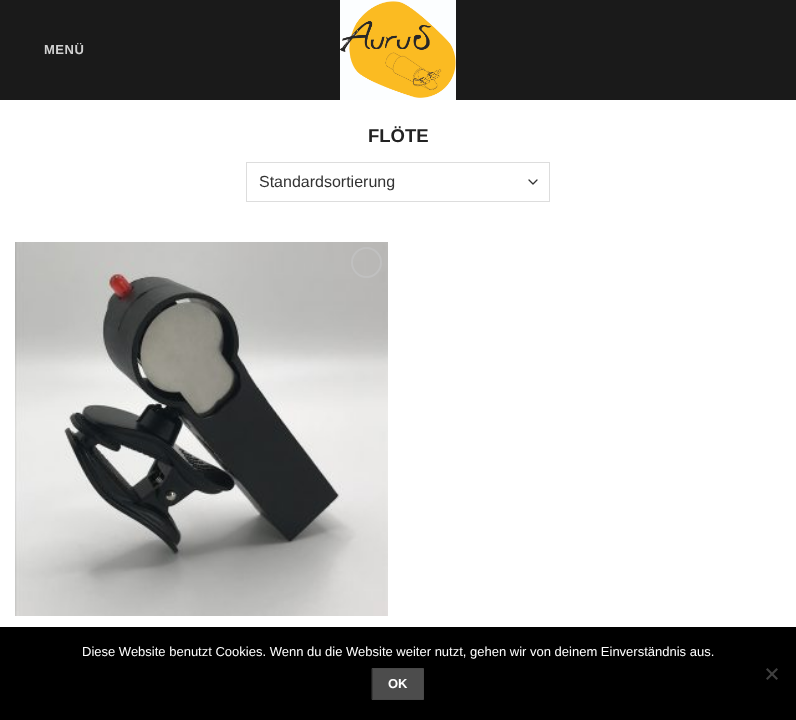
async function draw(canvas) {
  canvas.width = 796;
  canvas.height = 720;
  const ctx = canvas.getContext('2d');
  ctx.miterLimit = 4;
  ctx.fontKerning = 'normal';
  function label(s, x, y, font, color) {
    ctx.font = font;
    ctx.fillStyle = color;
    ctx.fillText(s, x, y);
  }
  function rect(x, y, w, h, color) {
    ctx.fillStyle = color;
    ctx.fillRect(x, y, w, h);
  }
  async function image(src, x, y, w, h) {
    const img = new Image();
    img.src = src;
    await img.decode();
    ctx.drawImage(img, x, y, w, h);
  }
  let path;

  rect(0, 0, 796, 720, '#fff');
  rect(0, 0, 796, 100, '#1a1a1a');
  ctx.letterSpacing = '0.5px';
  label('MENÜ', 44, 54, 'bold 13px Liberation Sans', '#d1d1d1');
  await image('assets/img1.png', 340, 0, 116, 100);
  ctx.letterSpacing = '0px';
  label('FLÖTE', 368, 142, 'bold 18.5px Liberation Sans', '#222');
  path = new Path2D('M529 180L533 184L537 180');
  ctx.strokeStyle = '#333';
  ctx.lineWidth = 1.3;
  ctx.lineCap = 'round';
  ctx.lineJoin = 'round';
  ctx.stroke(path);
  ctx.strokeStyle = '#ddd';
  ctx.lineWidth = 1;
  ctx.lineJoin = 'miter';
  ctx.strokeRect(246.5, 162.5, 303, 39);
  label('Standardsortierung', 259, 187, '16px Liberation Sans', '#333');
  await image('assets/img2.png', 15, 242, 373, 374);
  ctx.beginPath();
  ctx.arc(366.5, 262.5, 14.5, 0, 2 * Math.PI);
  ctx.strokeStyle = '#c0c0c0';
  ctx.lineWidth = 2;
  ctx.stroke();
  rect(0, 627, 796, 93, '#000');
  label('Diese Website benutzt Cookies. Wenn du die Website weiter nutzt, gehen wir von deinem Einverständnis aus.', 82, 656, '13px Liberation Sans', '#fff');
  ctx.fillStyle = '#404040';
  path = new Path2D('M776.5 668L778 669.5L767.5 680L766 678.5Z');
  ctx.fill(path);
  path = new Path2D('M766 669.5L767.5 668L778 678.5L776.5 680Z');
  ctx.fill(path);
  ctx.fillStyle = '#4c4c4c';
  ctx.beginPath();
  ctx.rect(372.5, 668.5, 51, 31);
  ctx.fill();
  ctx.strokeStyle = '#484848';
  ctx.lineWidth = 1;
  ctx.stroke();
  label('OK', 388, 688, 'bold 13px Liberation Sans', '#fff');
}

draw(document.querySelector('canvas'));
